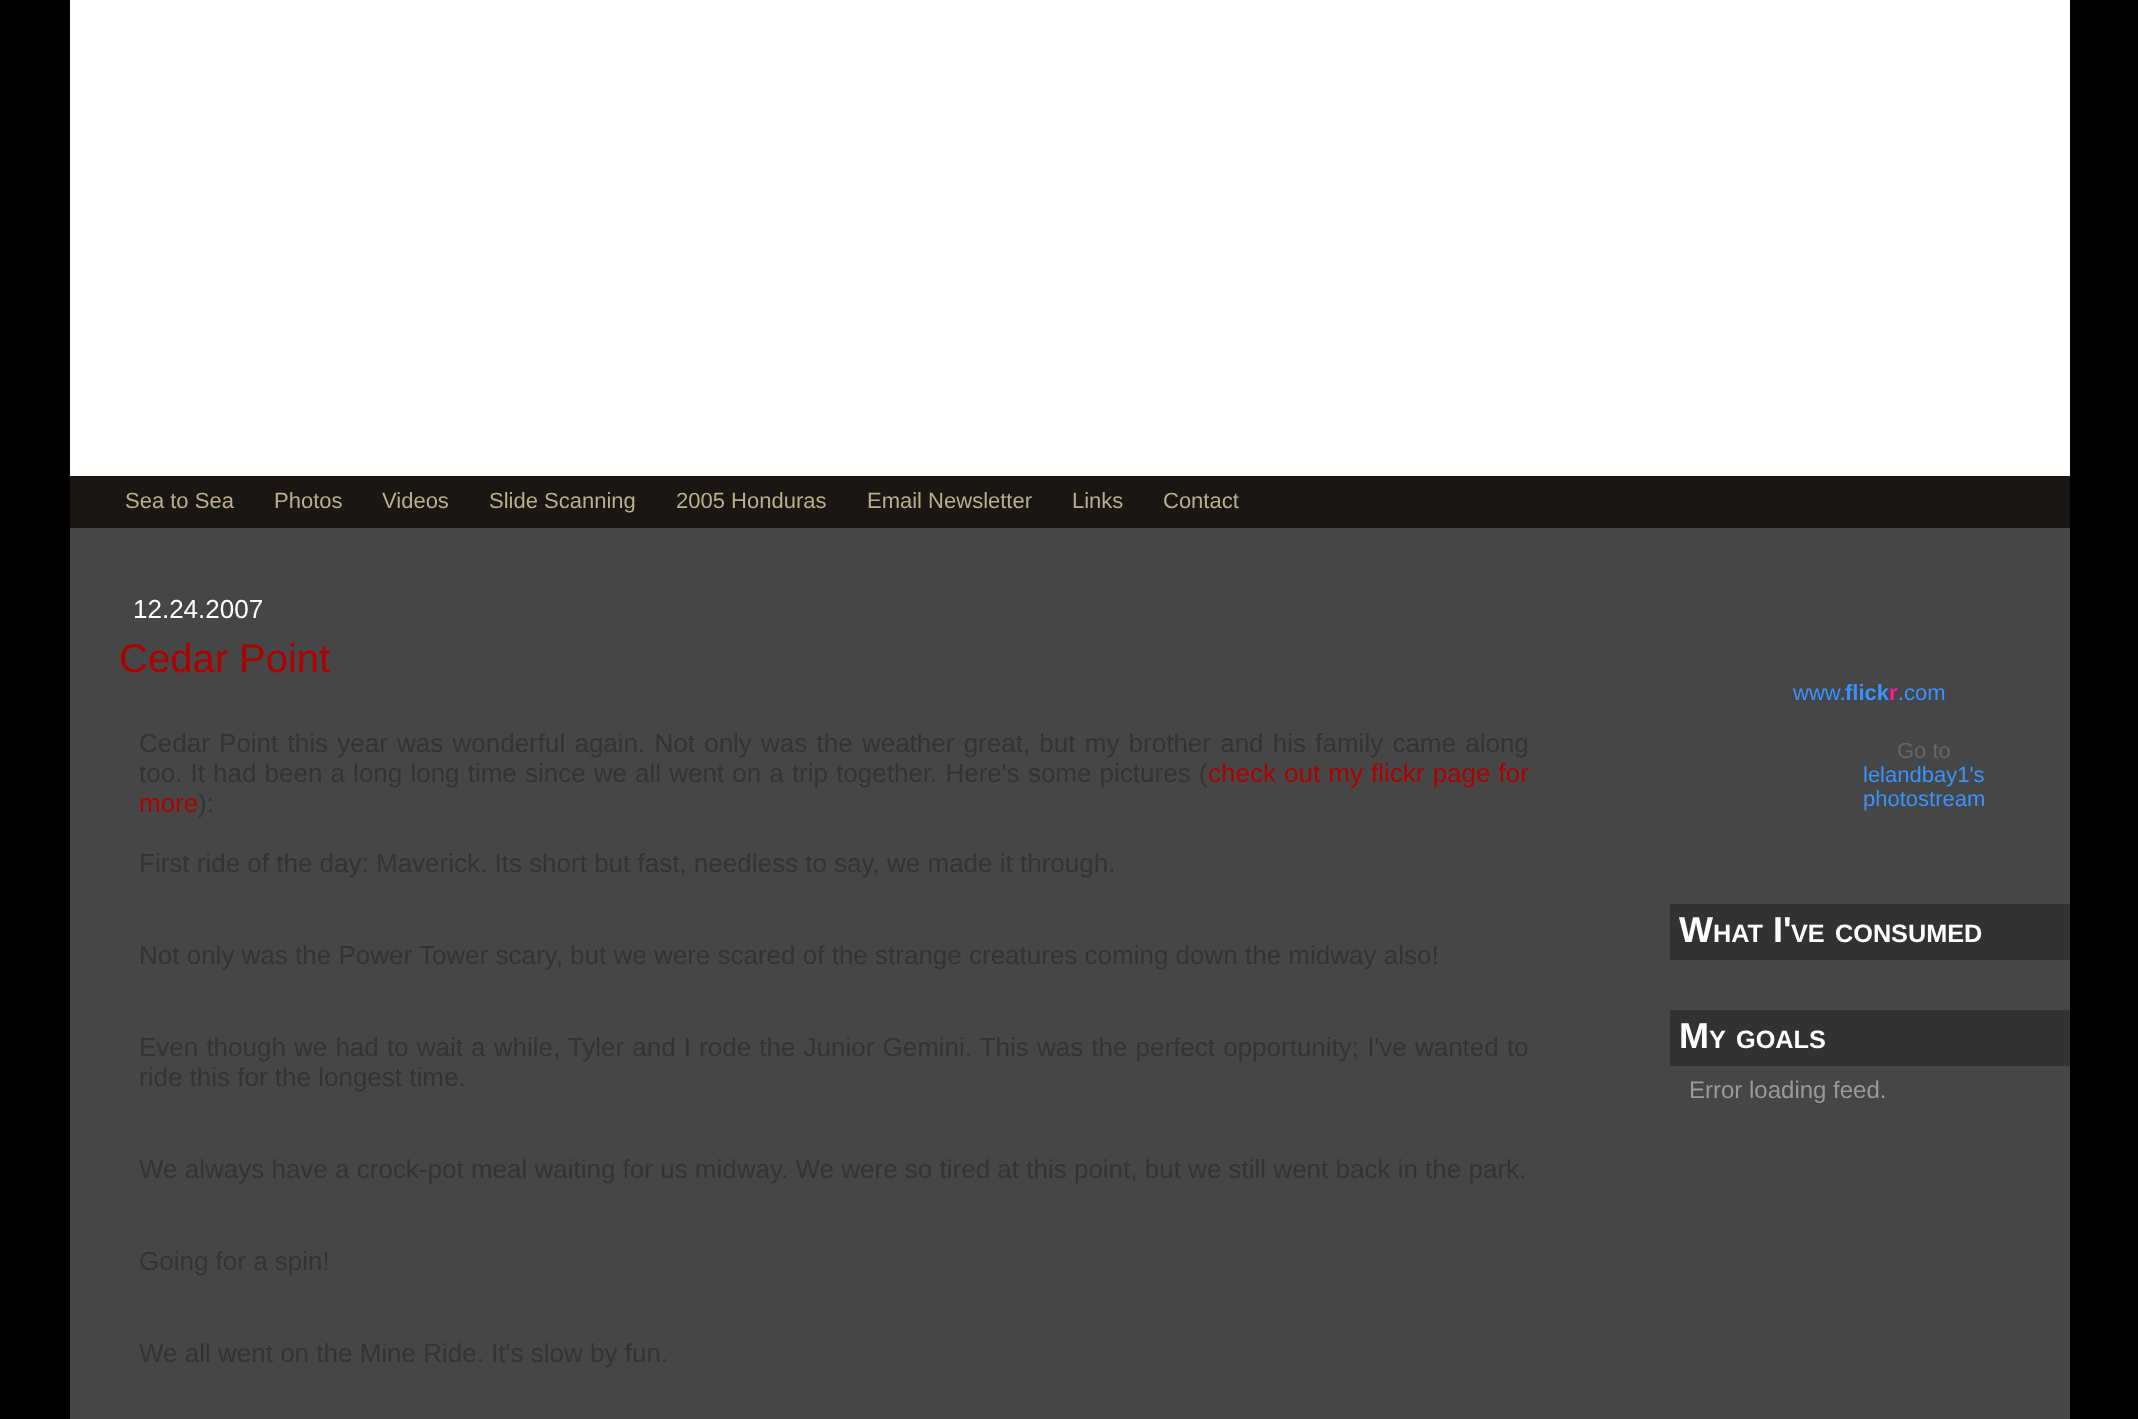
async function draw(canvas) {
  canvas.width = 2138;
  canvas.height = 1419;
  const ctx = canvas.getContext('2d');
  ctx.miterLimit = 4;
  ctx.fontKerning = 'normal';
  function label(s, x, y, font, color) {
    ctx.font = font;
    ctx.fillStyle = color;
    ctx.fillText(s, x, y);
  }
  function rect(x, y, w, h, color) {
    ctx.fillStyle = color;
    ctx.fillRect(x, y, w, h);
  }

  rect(0, 0, 2138, 1419, '#000');
  rect(70, 0, 2000, 476, '#fff');
  rect(70, 476, 2000, 52, '#1a1613');
  label('Sea to Sea', 125, 508, '22px Liberation Sans', '#b8af8b');
  label('Photos', 274, 508, '22px Liberation Sans', '#b8af8b');
  label('Videos', 382, 508, '22px Liberation Sans', '#b8af8b');
  label('Slide Scanning', 489, 508, '22px Liberation Sans', '#b8af8b');
  label('2005 Honduras', 676, 508, '22px Liberation Sans', '#b8af8b');
  label('Email Newsletter', 867, 508, '22px Liberation Sans', '#b8af8b');
  label('Links', 1072, 508, '22px Liberation Sans', '#b8af8b');
  label('Contact', 1163, 508, '22px Liberation Sans', '#b8af8b');
  rect(70, 528, 2000, 891, '#464646');
  label('12.24.2007', 133, 618, '26px Liberation Sans', '#fefefe');
  label('Cedar Point', 119, 672, '40px Liberation Sans', '#ae0000');
  ctx.wordSpacing = '2px';
  label('Cedar Point this year was wonderful again. Not only was the weather great, but my brother and his family came along', 139, 752, '26px Liberation Sans', '#333');
  ctx.wordSpacing = '0.9px';
  label('too. It had been a long long time since we all went on a trip together. Here\'s some pictures (', 139, 782, '26px Liberation Sans', '#333');
  label('check out my flickr page for', 1208, 782, '26px Liberation Sans', '#ae0000');
  ctx.wordSpacing = '0px';
  label('more', 139, 812, '26px Liberation Sans', '#ae0000');
  label('):', 198, 812, '26px Liberation Sans', '#333');
  label('First ride of the day: Maverick. Its short but fast, needless to say, we made it through.', 139, 872, '26px Liberation Sans', '#333');
  label('Not only was the Power Tower scary, but we were scared of the strange creatures coming down the midway also!', 139, 964, '26px Liberation Sans', '#333');
  ctx.wordSpacing = '0.9px';
  label('Even though we had to wait a while, Tyler and I rode the Junior Gemini. This was the perfect opportunity; I\'ve wanted to', 139, 1056, '26px Liberation Sans', '#333');
  ctx.wordSpacing = '0px';
  label('ride this for the longest time.', 139, 1086, '26px Liberation Sans', '#333');
  label('We always have a crock-pot meal waiting for us midway. We were so tired at this point, but we still went back in the park.', 139, 1178, '26px Liberation Sans', '#333');
  label('Going for a spin!', 139, 1270, '26px Liberation Sans', '#333');
  label('We all went on the Mine Ride. It\'s slow by fun.', 139, 1362, '26px Liberation Sans', '#333');
  label('www.', 1793, 700, '22px Liberation Sans', '#3993ff');
  label('flick', 1845, 700, 'bold 22px Liberation Sans', '#3993ff');
  label('r', 1889, 700, 'bold 22px Liberation Sans', '#ff1c92');
  label('.com', 1898, 700, '22px Liberation Sans', '#3993ff');
  label('Go to', 1897, 758, '22px Liberation Sans', '#666');
  label('lelandbay1\'s', 1863, 782, '22px Liberation Sans', '#3993ff');
  label('photostream', 1863, 806, '22px Liberation Sans', '#3993ff');
  rect(1670, 904, 400, 56, '#323232');
  label('W', 1679, 942, 'bold 36px Liberation Sans', '#fefefe');
  label('HAT', 1713, 942, 'bold 25.25px Liberation Sans', '#fefefe');
  label('I\'', 1773, 942, 'bold 36px Liberation Sans', '#fefefe');
  label('VE', 1791, 942, 'bold 25.25px Liberation Sans', '#fefefe');
  label('CONSUMED', 1835, 942, 'bold 25.25px Liberation Sans', '#fefefe');
  rect(1670, 1010, 400, 56, '#323232');
  label('M', 1679, 1048, 'bold 36px Liberation Sans', '#fefefe');
  label('Y', 1709, 1048, 'bold 25.25px Liberation Sans', '#fefefe');
  label('GOALS', 1736, 1048, 'bold 25.25px Liberation Sans', '#fefefe');
  label('Error loading feed.', 1689, 1098, '24px Liberation Sans', '#999');
}

draw(document.querySelector('canvas'));
